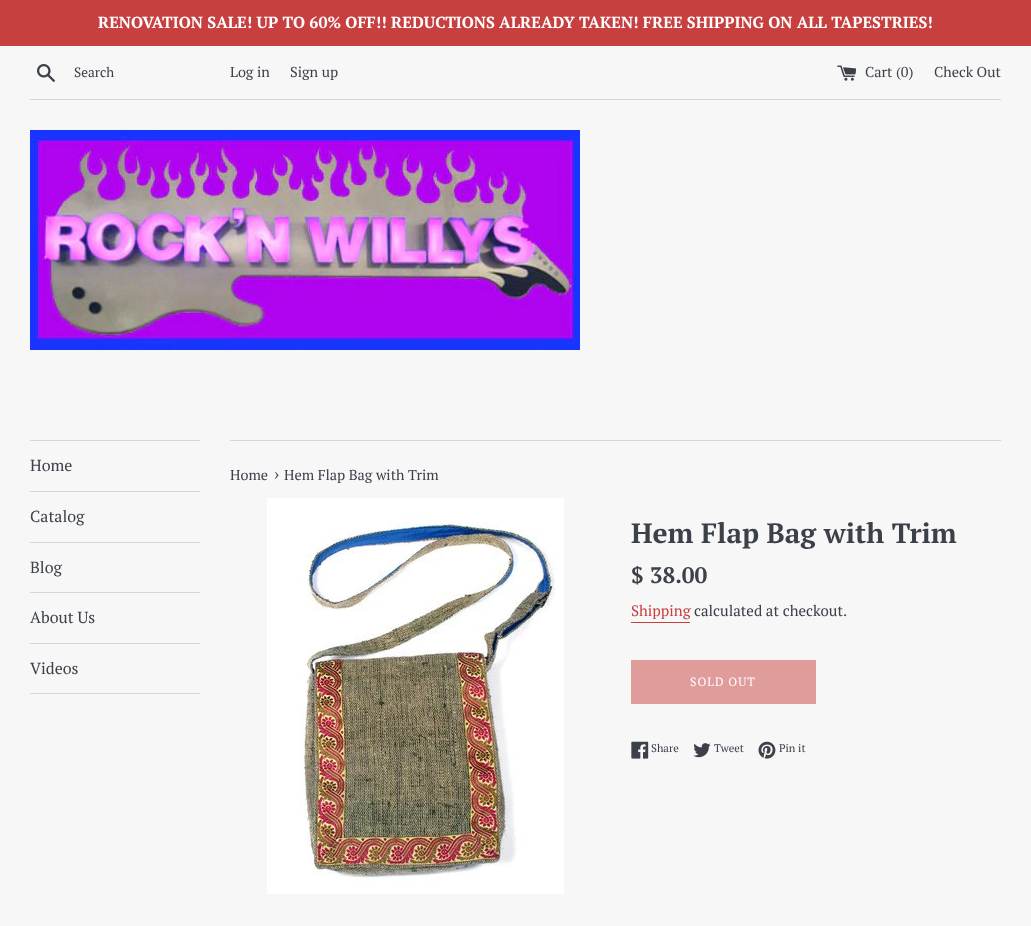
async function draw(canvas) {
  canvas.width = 1031;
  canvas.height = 926;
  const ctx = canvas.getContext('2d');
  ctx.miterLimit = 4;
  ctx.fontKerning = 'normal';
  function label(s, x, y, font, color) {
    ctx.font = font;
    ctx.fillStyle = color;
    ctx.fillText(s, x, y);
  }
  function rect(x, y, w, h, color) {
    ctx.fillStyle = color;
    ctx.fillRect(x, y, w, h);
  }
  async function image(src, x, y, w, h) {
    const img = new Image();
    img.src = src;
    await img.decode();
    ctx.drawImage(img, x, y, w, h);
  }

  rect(0, 0, 1031, 926, '#f7f7f7');
  rect(0, 0, 1031, 46, '#c83f3f');
  label('RENOVATION SALE! UP TO 60% OFF!! REDUCTIONS ALREADY TAKEN! FREE SHIPPING ON ALL TAPESTRIES!', 98, 28, 'bold 16px PT Serif', '#fff');
  await image('assets/img1.png', 37, 64, 18, 18);
  label('Search', 74, 77, '13.5px PT Serif', '#3c4049');
  label('Log in', 230, 77, '14.4px PT Serif', '#3c4049');
  label('Sign up', 290, 77, '14.4px PT Serif', '#3c4049');
  await image('assets/img2.png', 837, 65, 20, 16);
  label('Cart (0)', 865, 77, '14.4px PT Serif', '#3c4049');
  label('Check Out', 934, 77, '14.4px PT Serif', '#3c4049');
  rect(30, 99, 971, 1, '#d7d8d2');
  await image('assets/img3.png', 30, 130, 550, 220);
  rect(30, 440, 170, 1, '#d7d8d2');
  rect(30, 491, 170, 1, '#d7d8d2');
  label('Home', 30, 471, '16px PT Serif', '#3c4049');
  rect(30, 542, 170, 1, '#d7d8d2');
  label('Catalog', 30, 522, '16px PT Serif', '#3c4049');
  rect(30, 592, 170, 1, '#d7d8d2');
  label('Blog', 30, 573, '16px PT Serif', '#3c4049');
  rect(30, 643, 170, 1, '#d7d8d2');
  label('About Us', 30, 623, '16px PT Serif', '#3c4049');
  rect(30, 693, 170, 1, '#d7d8d2');
  label('Videos', 30, 674, '16px PT Serif', '#3c4049');
  rect(230, 440, 771, 1, '#d7d8d2');
  label('Home', 230, 480, '14.4px PT Serif', '#3c4049');
  label('›', 274, 480, '18px PT Serif', '#3c4049');
  label('Hem Flap Bag with Trim', 284, 480, '14.4px PT Serif', '#3c4049');
  await image('assets/img4.png', 267, 498, 297, 396);
  label('Hem Flap Bag with Trim', 631, 543, 'bold 28px PT Serif', '#3c4049');
  label('$ 38.00', 631, 583, 'bold 22.5px PT Serif', '#3c4049');
  label('Shipping', 631, 616, '15px PT Serif', '#c83f3f');
  rect(631, 622, 59, 1, '#c83f3f');
  label('calculated at checkout.', 694, 616, '15px PT Serif', '#3c4049');
  rect(631, 660, 185, 44, '#e09b9b');
  ctx.letterSpacing = '1px';
  label('SOLD OUT', 690, 686, '12px PT Serif', '#fff');
  await image('assets/img5.png', 631, 741, 18, 18);
  ctx.letterSpacing = '0px';
  label('Share', 651, 752, '11px PT Serif', '#3c4049');
  await image('assets/img6.png', 693, 743, 18, 15);
  label('Tweet', 714, 752, '11px PT Serif', '#3c4049');
  await image('assets/img7.png', 758, 741, 18, 18);
  label('Pin it', 779, 752, '11px PT Serif', '#3c4049');
}

draw(document.querySelector('canvas'));
